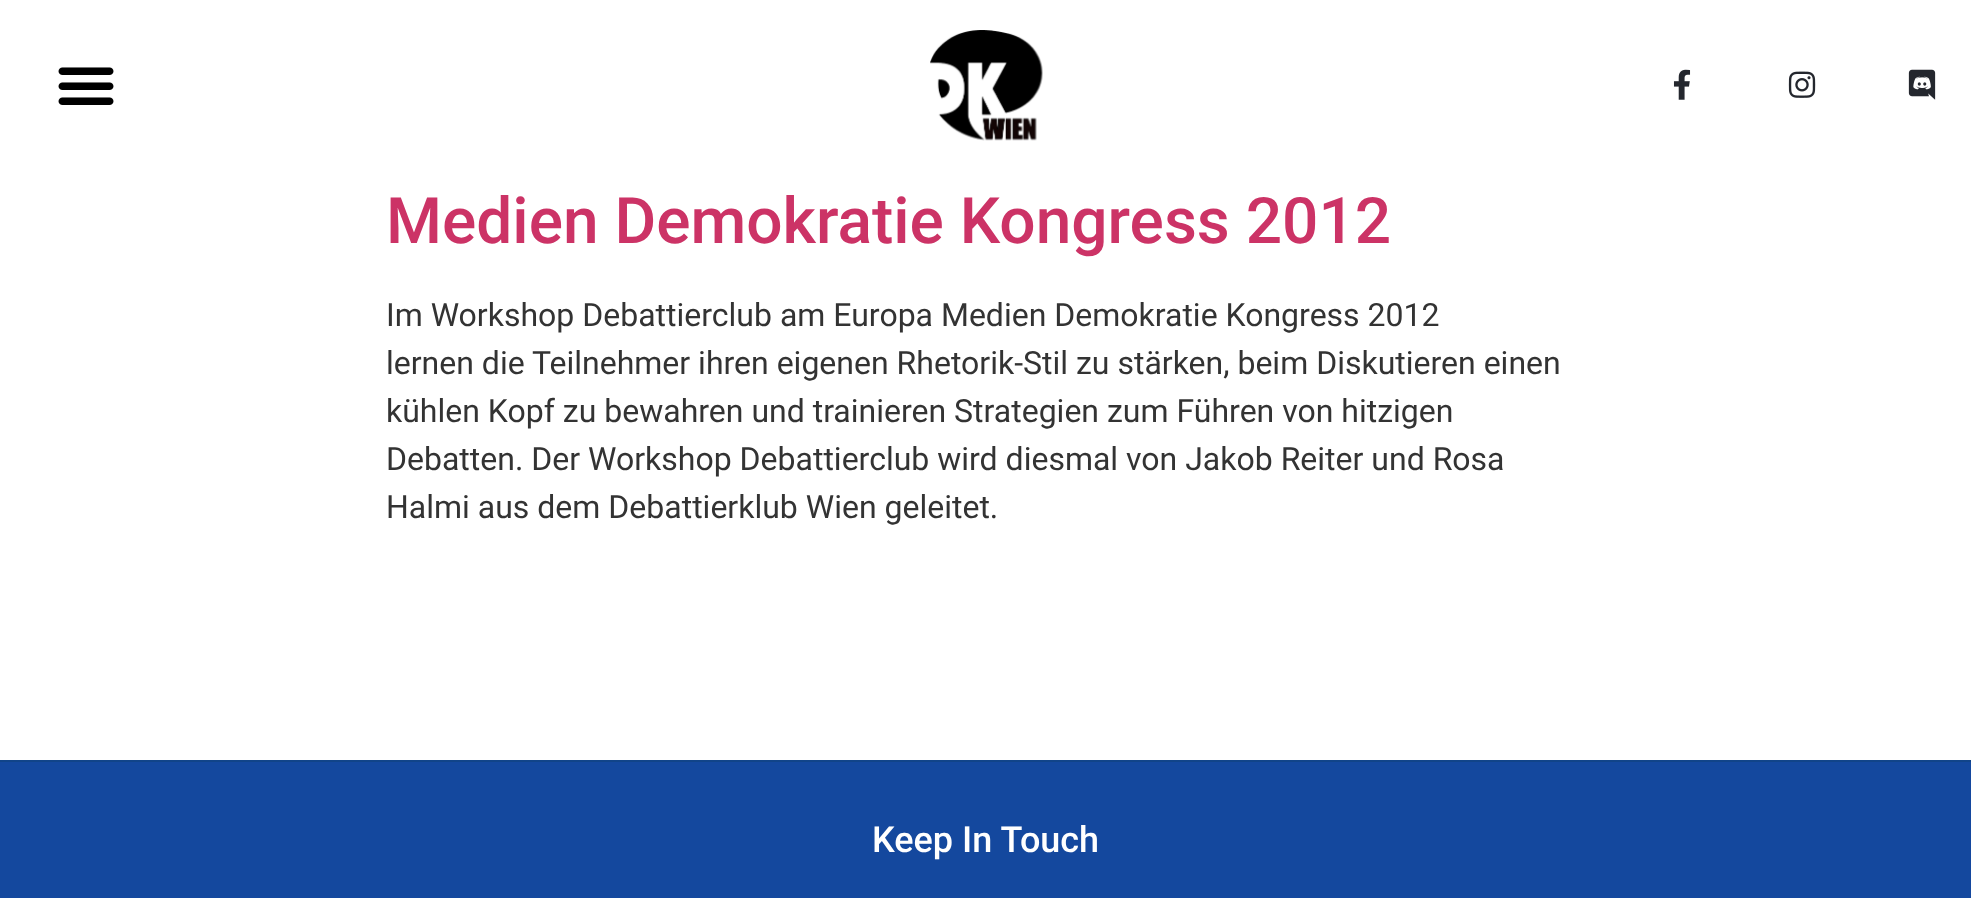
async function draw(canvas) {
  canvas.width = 1971;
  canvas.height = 898;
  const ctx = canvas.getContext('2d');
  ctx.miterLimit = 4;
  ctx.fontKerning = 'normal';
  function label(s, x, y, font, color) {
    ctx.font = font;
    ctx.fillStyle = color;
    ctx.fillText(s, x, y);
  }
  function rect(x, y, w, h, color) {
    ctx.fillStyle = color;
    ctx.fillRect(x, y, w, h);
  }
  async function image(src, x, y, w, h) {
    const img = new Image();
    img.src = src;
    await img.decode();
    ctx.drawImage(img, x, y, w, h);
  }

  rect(0, 0, 1971, 898, '#fff');
  await image('assets/img1.png', 58, 67, 56, 38);
  await image('assets/img2.png', 930, 30, 113, 111);
  await image('assets/img3.png', 1673, 69, 18, 31);
  await image('assets/img4.png', 1788, 71, 28, 27);
  await image('assets/img5.png', 1908, 69, 28, 31);
  label('Medien Demokratie Kongress 2012', 386, 243, '500 64px Roboto', '#c36');
  label('Im Workshop Debattierclub am Europa Medien Demokratie Kongress 2012', 386, 326, '32px Roboto', '#333');
  label('lernen die Teilnehmer ihren eigenen Rhetorik-Stil zu stärken, beim Diskutieren einen', 386, 374, '32px Roboto', '#333');
  label('kühlen Kopf zu bewahren und trainieren Strategien zum Führen von hitzigen', 386, 422, '32px Roboto', '#333');
  label('Debatten. Der Workshop Debattierclub wird diesmal von Jakob Reiter und Rosa', 386, 470, '32px Roboto', '#333');
  label('Halmi aus dem Debattierklub Wien geleitet.', 386, 518, '32px Roboto', '#333');
  rect(0, 762, 1971, 136, '#14489e');
  rect(0, 760, 1971, 2, '#114489');
  label('Keep In Touch', 872, 852, '500 36px Roboto', '#fff');
}

draw(document.querySelector('canvas'));
